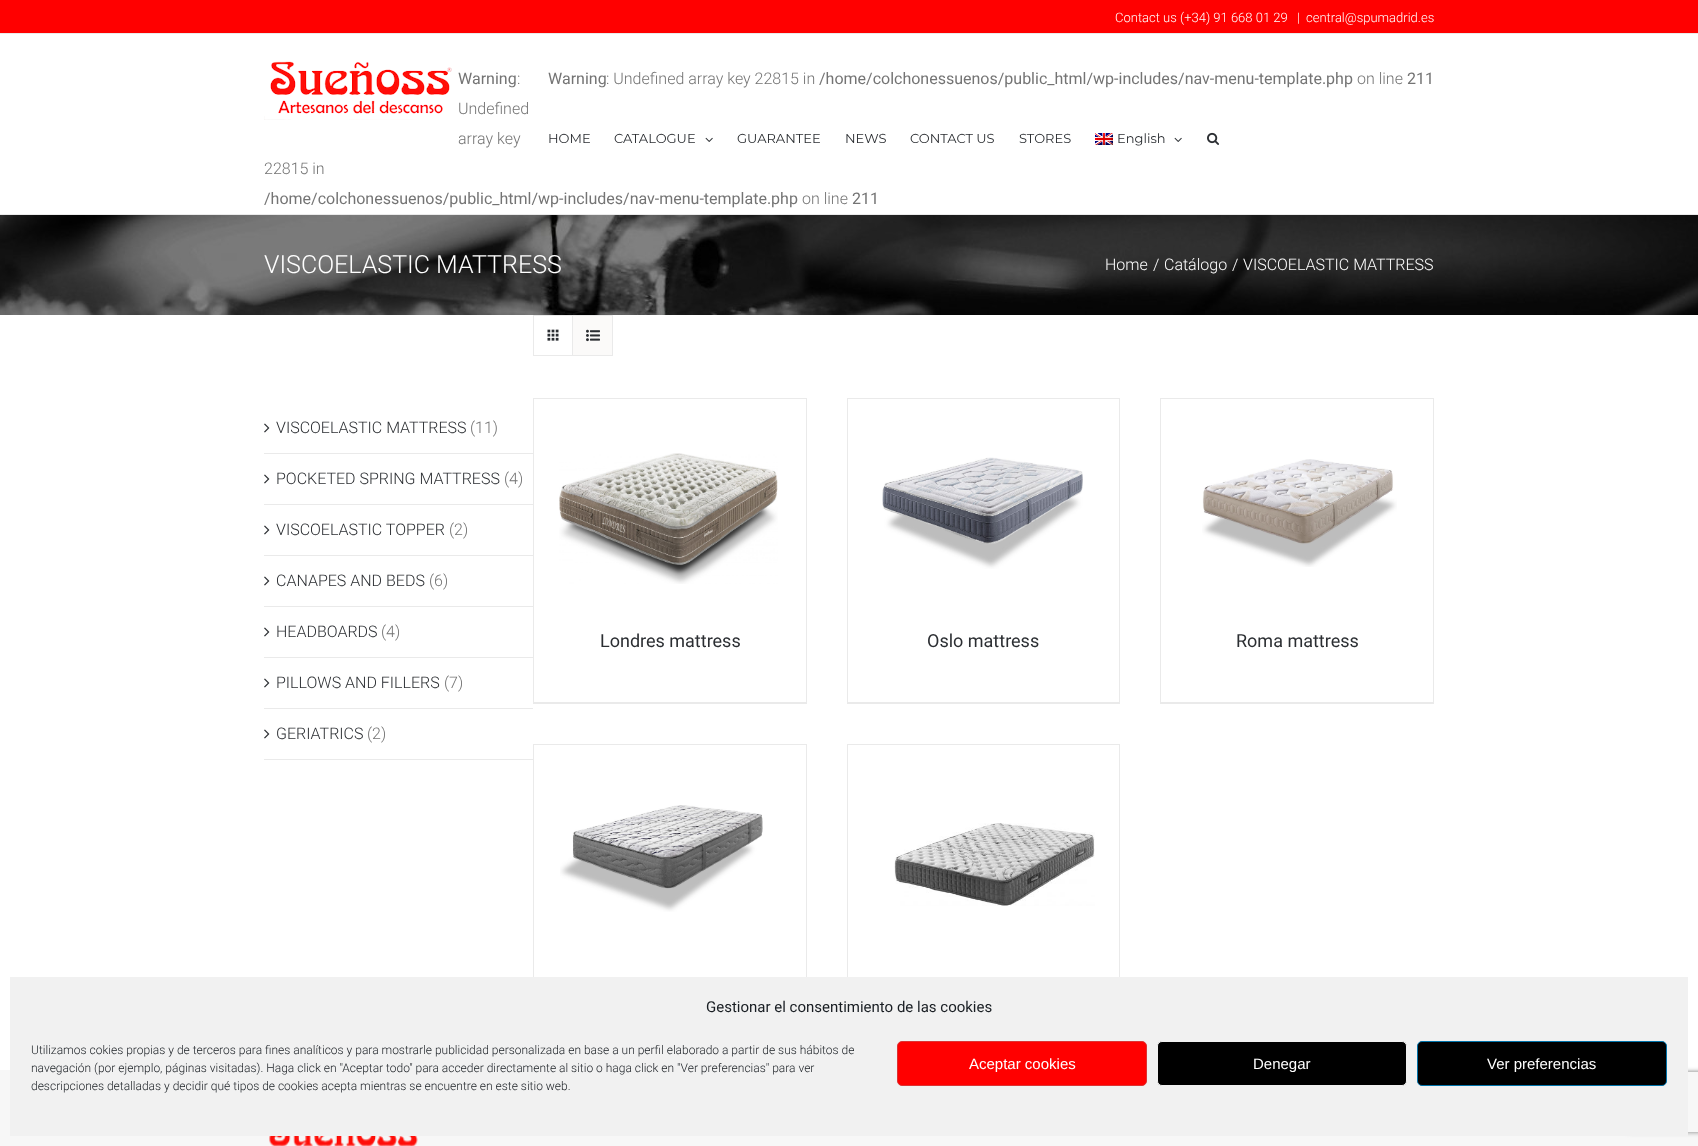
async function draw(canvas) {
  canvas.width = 1698;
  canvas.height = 1146;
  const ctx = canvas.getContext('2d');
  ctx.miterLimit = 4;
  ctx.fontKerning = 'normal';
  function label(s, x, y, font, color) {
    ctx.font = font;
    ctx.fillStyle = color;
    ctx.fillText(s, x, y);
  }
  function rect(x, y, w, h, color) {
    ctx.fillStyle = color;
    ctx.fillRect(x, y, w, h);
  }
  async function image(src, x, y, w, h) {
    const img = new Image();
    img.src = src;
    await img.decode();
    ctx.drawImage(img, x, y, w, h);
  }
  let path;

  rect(0, 0, 1698, 1146, '#fff');
  rect(0, 0, 1698, 33, '#f00');
  rect(0, 33, 1698, 1, '#eaeaea');
  label('Contact us (+34) 91 668 01 29', 1115, 22, '300 13px Roboto', '#fff');
  label('|', 1297, 22, '300 13px Roboto', '#fff');
  label('central@spumadrid.es', 1306, 22, '300 13px Roboto', '#fff');
  rect(0, 214, 1698, 1, '#eaeaea');
  await image('assets/img1.png', 264, 61, 188, 59);
  label('Warning', 458, 84, '16px Roboto', '#747474');
  label(':', 517, 84, '300 16px Roboto', '#747474');
  label('Warning', 548, 84, '16px Roboto', '#747474');
  label(': Undefined array key 22815 in', 606, 84, '300 16px Roboto', '#747474');
  label('/home/colchonessuenos/public_html/wp-includes/nav-menu-template.php', 819, 84, '16px Roboto', '#747474');
  label('on line', 1357, 84, '300 16px Roboto', '#747474');
  label('211', 1407, 84, '16px Roboto', '#747474');
  label('HOME', 548, 143, '100 13px Montserrat', '#2b2e32');
  label('CATALOGUE', 614, 143, '100 13px Montserrat', '#2b2e32');
  await image('assets/img2.png', 705, 137, 8, 5);
  label('GUARANTEE', 737, 143, '100 13px Montserrat', '#2b2e32');
  label('NEWS', 845, 143, '100 13px Montserrat', '#2b2e32');
  label('CONTACT US', 910, 143, '100 13px Montserrat', '#2b2e32');
  label('STORES', 1019, 143, '100 13px Montserrat', '#2b2e32');
  await image('assets/img3.png', 1095, 133, 18, 12);
  label('English', 1117, 143, '100 13px Montserrat', '#2b2e32');
  await image('assets/img2.png', 1174, 137, 8, 5);
  await image('assets/img4.png', 1207, 132, 12, 13);
  label('Undefined', 458, 114, '300 16px Roboto', '#747474');
  label('array key', 458, 144, '300 16px Roboto', '#747474');
  label('22815 in', 264, 174, '300 16px Roboto', '#747474');
  label('/home/colchonessuenos/public_html/wp-includes/nav-menu-template.php', 264, 204, '16px Roboto', '#747474');
  label('on line', 802, 204, '300 16px Roboto', '#747474');
  label('211', 852, 204, '16px Roboto', '#747474');
  await image('assets/img5.png', 0, 215, 1698, 100);
  label('VISCOELASTIC MATTRESS', 264, 273, '300 25px Roboto', '#fff');
  label('Home', 1105, 270, '300 16px Roboto', '#fff');
  label('/', 1153, 270, '300 16px Roboto', '#fff');
  label('Catálogo', 1164, 270, '300 16px Roboto', '#fff');
  label('/', 1232, 270, '300 16px Roboto', '#fff');
  label('VISCOELASTIC MATTRESS', 1243, 270, '300 16px Roboto', '#fff');
  rect(264, 453, 269, 1, '#eaeaea');
  await image('assets/img6.png', 264, 423, 6, 10);
  label('VISCOELASTIC MATTRESS', 276, 433, '300 16px Roboto', '#2b2e32');
  label('(11)', 470, 433, '300 16px Roboto', '#747474');
  rect(264, 504, 269, 1, '#eaeaea');
  await image('assets/img6.png', 264, 474, 6, 10);
  label('POCKETED SPRING MATTRESS', 276, 484, '300 16px Roboto', '#2b2e32');
  label('(4)', 504, 484, '300 16px Roboto', '#747474');
  rect(264, 555, 269, 1, '#eaeaea');
  await image('assets/img6.png', 264, 525, 6, 10);
  label('VISCOELASTIC TOPPER', 276, 535, '300 16px Roboto', '#2b2e32');
  label('(2)', 449, 535, '300 16px Roboto', '#747474');
  rect(264, 606, 269, 1, '#eaeaea');
  await image('assets/img6.png', 264, 576, 6, 10);
  label('CANAPES AND BEDS', 276, 586, '300 16px Roboto', '#2b2e32');
  label('(6)', 429, 586, '300 16px Roboto', '#747474');
  rect(264, 657, 269, 1, '#eaeaea');
  await image('assets/img6.png', 264, 627, 6, 10);
  label('HEADBOARDS', 276, 637, '300 16px Roboto', '#2b2e32');
  label('(4)', 381, 637, '300 16px Roboto', '#747474');
  rect(264, 708, 269, 1, '#eaeaea');
  await image('assets/img6.png', 264, 678, 6, 10);
  label('PILLOWS AND FILLERS', 276, 688, '300 16px Roboto', '#2b2e32');
  label('(7)', 444, 688, '300 16px Roboto', '#747474');
  rect(264, 759, 269, 1, '#eaeaea');
  await image('assets/img6.png', 264, 729, 6, 10);
  label('GERIATRICS', 276, 739, '300 16px Roboto', '#2b2e32');
  label('(2)', 367, 739, '300 16px Roboto', '#747474');
  ctx.strokeStyle = '#eaeaea';
  ctx.strokeRect(533.5, 315.5, 79, 40);
  rect(572, 316, 1, 39, '#eaeaea');
  await image('assets/img7.png', 547, 329, 12, 12);
  rect(573, 316, 39, 39, '#fbfaf9');
  await image('assets/img8.png', 586, 329, 14, 13);
  rect(533, 398, 274, 1, '#eaeaea');
  rect(806, 398, 1, 306, '#eaeaea');
  rect(533, 702, 274, 2, '#eaeaea');
  rect(533, 398, 1, 306, '#eaeaea');
  await image('assets/img9.png', 559, 453, 219, 131);
  label('Londres mattress', 600, 647, '18px Roboto', '#2b2e32');
  rect(847, 398, 273, 1, '#eaeaea');
  rect(1119, 398, 1, 306, '#eaeaea');
  rect(847, 702, 273, 2, '#eaeaea');
  rect(847, 398, 1, 306, '#eaeaea');
  await image('assets/img10.png', 882, 457, 201, 112);
  label('Oslo mattress', 927, 647, '18px Roboto', '#2b2e32');
  rect(1160, 398, 274, 1, '#eaeaea');
  rect(1433, 398, 1, 306, '#eaeaea');
  rect(1160, 702, 274, 2, '#eaeaea');
  rect(1160, 398, 1, 306, '#eaeaea');
  await image('assets/img11.png', 1202, 459, 195, 108);
  label('Roma mattress', 1236, 647, '18px Roboto', '#2b2e32');
  rect(533, 744, 274, 1, '#eaeaea');
  rect(806, 744, 1, 233, '#eaeaea');
  rect(533, 744, 1, 233, '#eaeaea');
  await image('assets/img12.png', 560, 805, 203, 107);
  rect(847, 744, 273, 1, '#eaeaea');
  rect(1119, 744, 1, 233, '#eaeaea');
  rect(847, 744, 1, 233, '#eaeaea');
  await image('assets/img13.png', 894, 823, 201, 83);
  rect(0, 1070, 1698, 76, '#f7f7f7');
  await image('assets/img14.png', 269, 1136, 149, 10);
  ctx.save();
  path = new Path2D('M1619 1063H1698V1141H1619ZM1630 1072H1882C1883 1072 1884 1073 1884 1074V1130C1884 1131 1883 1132 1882 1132H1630C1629 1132 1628 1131 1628 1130V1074C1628 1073 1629 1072 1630 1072Z');
  ctx.clip(path, 'evenodd');
  ctx.fillStyle = '#808080';
  ctx.filter = 'blur(2.5px)';
  ctx.beginPath();
  ctx.roundRect(1628, 1072, 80, 60, 2);
  ctx.fill();
  ctx.filter = 'none';
  ctx.restore();
  rect(10, 977, 1678, 159, '#f1f1f1');
  label('Gestionar el consentimiento de las cookies', 706, 1012, '15px Roboto', '#191e23');
  label('Utilizamos cokies propias y de terceros para fines analíticos y para mostrarle publicidad personalizada en base a un perfil elaborado a partir de sus hábitos de', 31, 1054, '300 12px Roboto', '#191e23');
  label('navegación (por ejemplo, páginas visitadas). Haga click en "Aceptar todo" para acceder directamente al sitio o haga click en "Ver preferencias" para ver', 31, 1072, '300 12px Roboto', '#191e23');
  label('descripciones detalladas y decidir qué tipos de cookies acepta mientras se encuentre en este sitio web.', 31, 1090, '300 12px Roboto', '#191e23');
  ctx.fillStyle = '#f00';
  ctx.beginPath();
  ctx.roundRect(897.5, 1041.5, 249, 44, 4.5);
  ctx.fill();
  ctx.strokeStyle = '#d33';
  ctx.stroke();
  label('Aceptar cookies', 969, 1069, '15px Liberation Sans', '#fff');
  ctx.fillStyle = '#000';
  ctx.beginPath();
  ctx.roundRect(1157.5, 1041.5, 249, 44, 4.5);
  ctx.fill();
  ctx.strokeStyle = '#f1f1f1';
  ctx.stroke();
  label('Denegar', 1253, 1069, '15px Liberation Sans', '#fff');
  ctx.fillStyle = '#000';
  ctx.beginPath();
  ctx.roundRect(1417.5, 1041.5, 249, 44, 4.5);
  ctx.fill();
  ctx.strokeStyle = '#0073aa';
  ctx.stroke();
  label('Ver preferencias', 1487, 1069, '15px Liberation Sans', '#fff');
}

draw(document.querySelector('canvas'));
